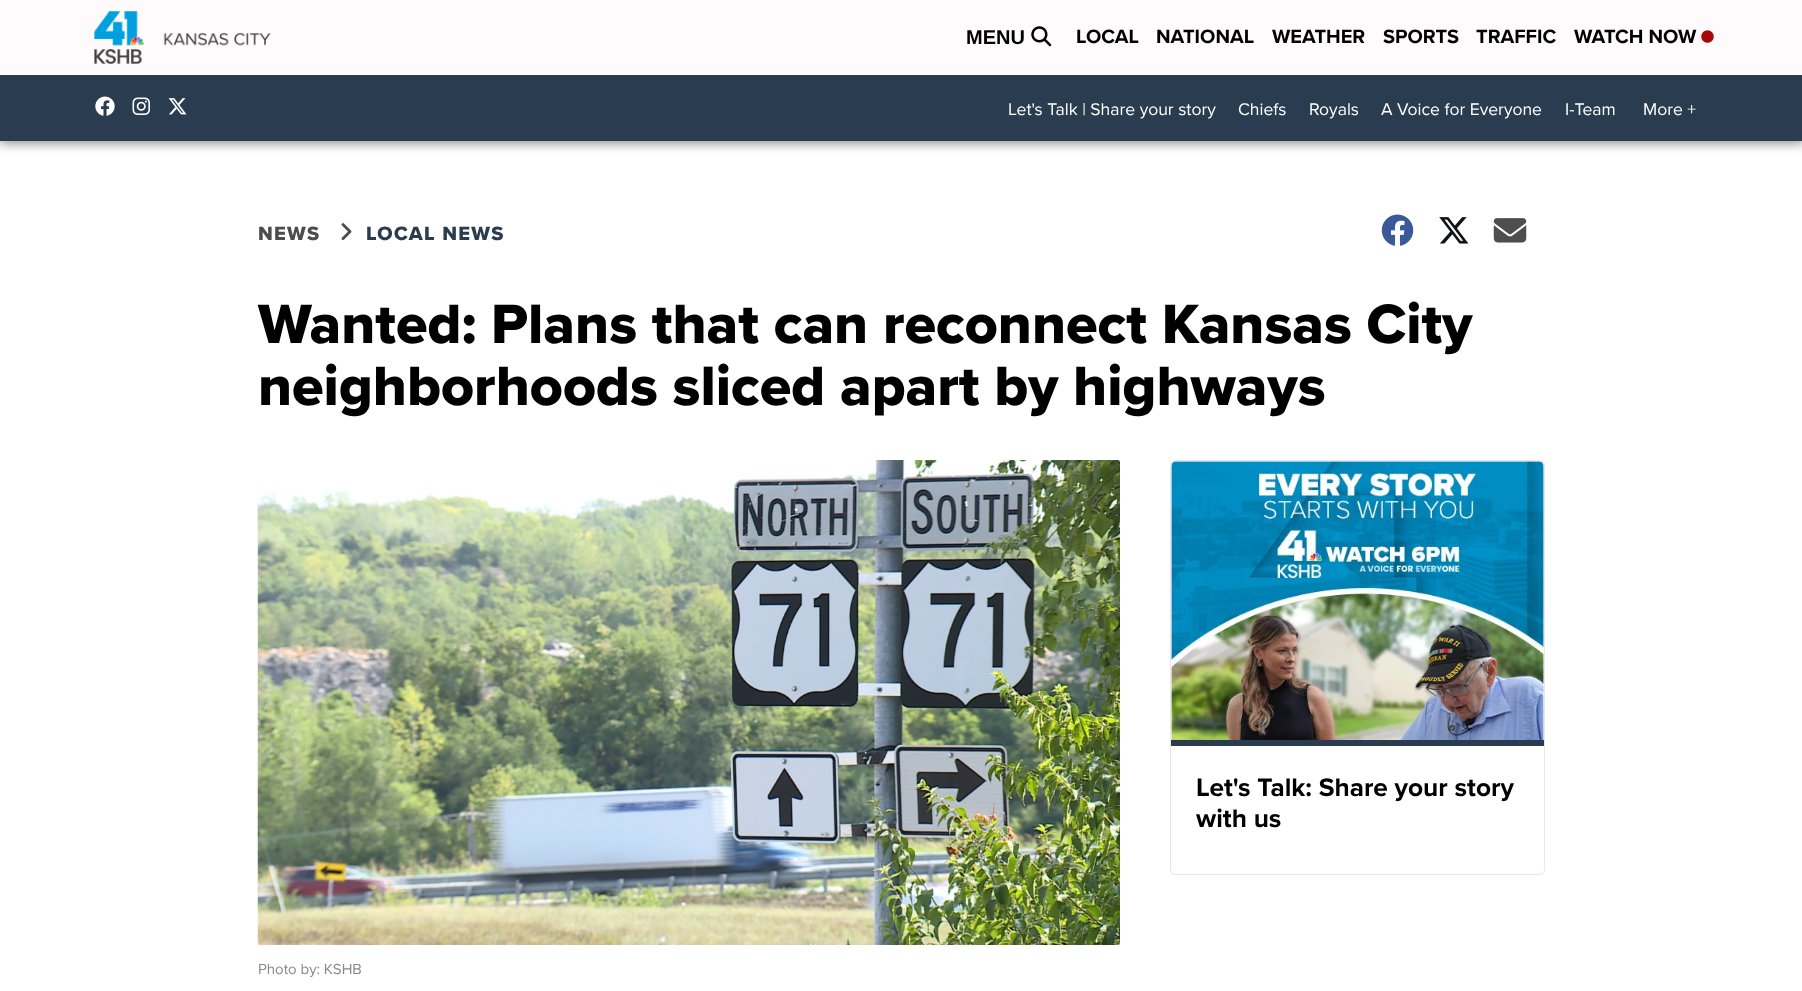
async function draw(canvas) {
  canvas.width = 1802;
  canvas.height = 991;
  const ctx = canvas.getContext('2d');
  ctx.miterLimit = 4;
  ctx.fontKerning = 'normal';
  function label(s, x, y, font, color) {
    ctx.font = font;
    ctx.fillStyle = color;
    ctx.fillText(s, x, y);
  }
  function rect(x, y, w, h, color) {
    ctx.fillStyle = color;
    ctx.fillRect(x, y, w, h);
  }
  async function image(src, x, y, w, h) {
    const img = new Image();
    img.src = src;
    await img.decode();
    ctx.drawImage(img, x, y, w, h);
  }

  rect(0, 0, 1802, 991, '#fff');
  ctx.fillStyle = '#616161c2';
  ctx.filter = 'blur(6px)';
  ctx.beginPath();
  ctx.rect(-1, -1, 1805, 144);
  ctx.fill();
  ctx.filter = 'none';
  rect(0, 0, 1802, 75, '#fffbfd');
  await image('assets/img1.png', 94, 11, 177, 53);
  label('MENU', 966, 44, 'bold 20px Liberation Sans', '#000');
  await image('assets/img2.png', 1031, 26, 21, 21);
  label('LOCAL', 1076, 43, 'bold 20px Proxima Nova', '#000');
  label('NATIONAL', 1156, 43, 'bold 20px Proxima Nova', '#000');
  label('WEATHER', 1272, 43, 'bold 20px Proxima Nova', '#000');
  label('SPORTS', 1383, 43, 'bold 20px Proxima Nova', '#000');
  label('TRAFFIC', 1476, 43, 'bold 20px Proxima Nova', '#000');
  label('WATCH NOW', 1574, 43, 'bold 20px Proxima Nova', '#000');
  await image('assets/img3.png', 1701, 30, 13, 13);
  rect(0, 75, 1802, 66, '#2a3c4f');
  await image('assets/img4.png', 95, 96, 20, 20);
  await image('assets/img5.png', 132, 97, 18, 18);
  await image('assets/img6.png', 168, 98, 19, 17);
  label('Let\'s Talk | Share your story', 1008, 115, '17.5px Proxima Nova', '#fff');
  label('Chiefs', 1238, 115, '17.5px Proxima Nova', '#fff');
  label('Royals', 1309, 115, '17.5px Proxima Nova', '#fff');
  label('A Voice for Everyone', 1381, 115, '17.5px Proxima Nova', '#fff');
  label('I-Team', 1565, 115, '17.5px Proxima Nova', '#fff');
  label('More +', 1643, 115, '17.5px Proxima Nova', '#fff');
  ctx.letterSpacing = '1.25px';
  label('NEWS', 258, 240, '800 20px Proxima Nova', '#4d4d4d');
  await image('assets/img7.png', 341, 223, 11, 17);
  label('LOCAL NEWS', 366, 240, '800 20px Proxima Nova', '#2a3c4f');
  await image('assets/img8.png', 1381, 214, 33, 32);
  await image('assets/img9.png', 1439, 217, 30, 27);
  await image('assets/img10.png', 1493, 218, 34, 25);
  ctx.letterSpacing = '0px';
  label('Wanted: Plans that can reconnect Kansas City', 258, 343, '800 57.5px Proxima Nova', '#000');
  label('neighborhoods sliced apart by highways', 258, 405, '800 57.5px Proxima Nova', '#000');
  ctx.beginPath();
  ctx.roundRect(1170.5, 460.5, 374, 414, 4.5);
  ctx.strokeStyle = '#e7e7e7';
  ctx.stroke();
  await image('assets/img11.png', 1171, 461, 373, 279);
  rect(1171, 740, 373, 6, '#2a3c4f');
  label('Let\'s Talk: Share your story', 1196, 796, 'bold 26.25px Proxima Nova', '#000');
  label('with us', 1196, 827, 'bold 26.25px Proxima Nova', '#000');
  await image('assets/img12.png', 257, 460, 863, 485);
  label('Photo by: KSHB', 258, 974, '15px Proxima Nova', '#888');
}

draw(document.querySelector('canvas'));
